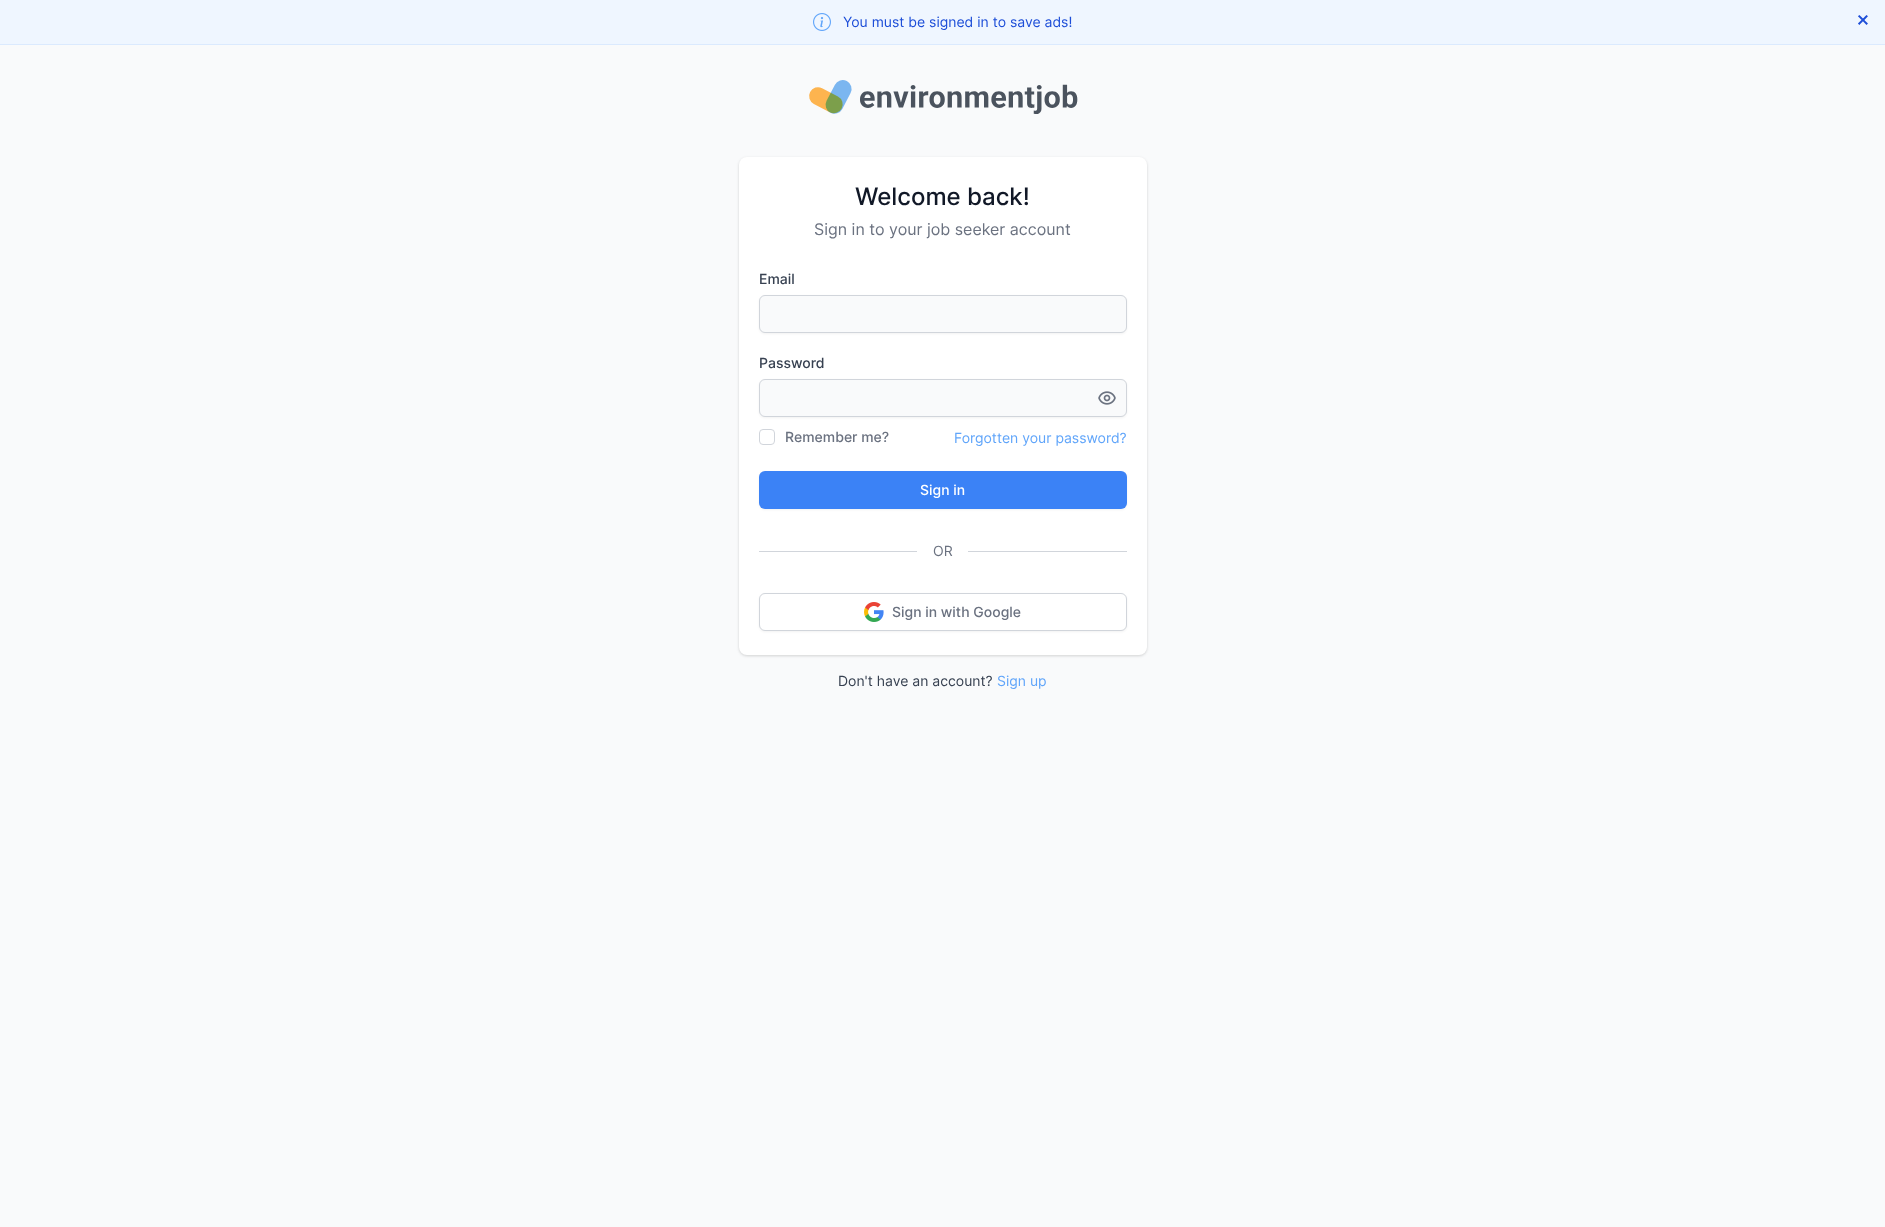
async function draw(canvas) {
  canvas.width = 1885;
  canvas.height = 1227;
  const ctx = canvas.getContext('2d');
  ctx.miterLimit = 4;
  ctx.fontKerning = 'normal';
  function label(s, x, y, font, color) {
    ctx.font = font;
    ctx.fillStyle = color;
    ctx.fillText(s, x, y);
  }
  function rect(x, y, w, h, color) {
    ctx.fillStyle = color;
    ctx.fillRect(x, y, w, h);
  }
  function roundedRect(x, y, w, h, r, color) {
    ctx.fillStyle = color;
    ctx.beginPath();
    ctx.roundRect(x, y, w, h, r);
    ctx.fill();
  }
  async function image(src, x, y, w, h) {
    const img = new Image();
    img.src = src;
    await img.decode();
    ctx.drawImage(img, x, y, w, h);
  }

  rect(0, 0, 1885, 1227, '#f9fafb');
  rect(0, 0, 1885, 44, '#eff6ff');
  rect(0, 44, 1885, 1, '#dbeafe');
  await image('assets/img1.png', 813, 13, 18, 18);
  label('You must be signed in to save ads!', 843, 27, '14px Inter', '#1d4ed8');
  label('✕', 1856, 26, 'bold 16px DejaVu Sans', '#1d4ed8');
  await image('assets/img2.png', 809, 80, 269, 34);
  ctx.fillStyle = '#0000000f';
  ctx.filter = 'blur(1px)';
  ctx.beginPath();
  ctx.roundRect(739, 158, 408, 498, 8);
  ctx.fill();
  ctx.filter = 'none';
  ctx.fillStyle = '#0000001a';
  ctx.filter = 'blur(1.5px)';
  ctx.beginPath();
  ctx.roundRect(739, 158, 408, 498, 8);
  ctx.fill();
  ctx.filter = 'none';
  roundedRect(739, 157, 408, 498, 8, '#fff');
  label('Welcome back!', 855, 205, '500 24px Inter', '#111827');
  label('Sign in to your job seeker account', 814, 235, '16px Inter', '#6b7280');
  label('Email', 759, 284, '500 14px Inter', '#374151');
  ctx.fillStyle = '#0000000d';
  ctx.filter = 'blur(1px)';
  ctx.beginPath();
  ctx.roundRect(759, 296, 368, 38, 6);
  ctx.fill();
  ctx.filter = 'none';
  ctx.fillStyle = '#f9fafb';
  ctx.beginPath();
  ctx.roundRect(759.5, 295.5, 367, 37, 5.5);
  ctx.fill();
  ctx.strokeStyle = '#d1d5db';
  ctx.stroke();
  label('Password', 759, 368, '500 14px Inter', '#374151');
  ctx.fillStyle = '#0000000d';
  ctx.filter = 'blur(1px)';
  ctx.beginPath();
  ctx.roundRect(759, 380, 368, 38, 6);
  ctx.fill();
  ctx.filter = 'none';
  ctx.fillStyle = '#f9fafb';
  ctx.beginPath();
  ctx.roundRect(759.5, 379.5, 367, 37, 5.5);
  ctx.fill();
  ctx.stroke();
  await image('assets/img3.png', 1098, 391, 18, 14);
  ctx.beginPath();
  ctx.roundRect(759.5, 429.5, 15, 15, 3.5);
  ctx.stroke();
  label('Remember me?', 785, 442, '500 14px Inter', '#6b7280');
  label('Forgotten your password?', 954, 443, '14px Inter', '#60a5fa');
  ctx.fillStyle = '#0000000d';
  ctx.filter = 'blur(1px)';
  ctx.beginPath();
  ctx.roundRect(759, 472, 368, 38, 6);
  ctx.fill();
  ctx.filter = 'none';
  roundedRect(759, 471, 368, 38, 6, '#3b82f6');
  label('Sign in', 920, 495, '500 14px Inter', '#fff');
  rect(759, 551, 368, 1, '#d1d5db');
  rect(917, 551, 51, 1, '#fff');
  label('OR', 933, 556, '14px Inter', '#6b7280');
  ctx.fillStyle = '#0000000d';
  ctx.filter = 'blur(1px)';
  ctx.beginPath();
  ctx.roundRect(759, 594, 368, 38, 6);
  ctx.fill();
  ctx.filter = 'none';
  ctx.fillStyle = '#fff';
  ctx.beginPath();
  ctx.roundRect(759.5, 593.5, 367, 37, 5.5);
  ctx.fill();
  ctx.stroke();
  await image('assets/img4.png', 864, 602, 20, 20);
  label('Sign in with Google', 892, 617, '500 14px Inter', '#6b7280');
  label('Don\'t have an account?', 838, 686, '14px Inter', '#374151');
  label('Sign up', 997, 686, '14px Inter', '#60a5fa');
}

draw(document.querySelector('canvas'));
